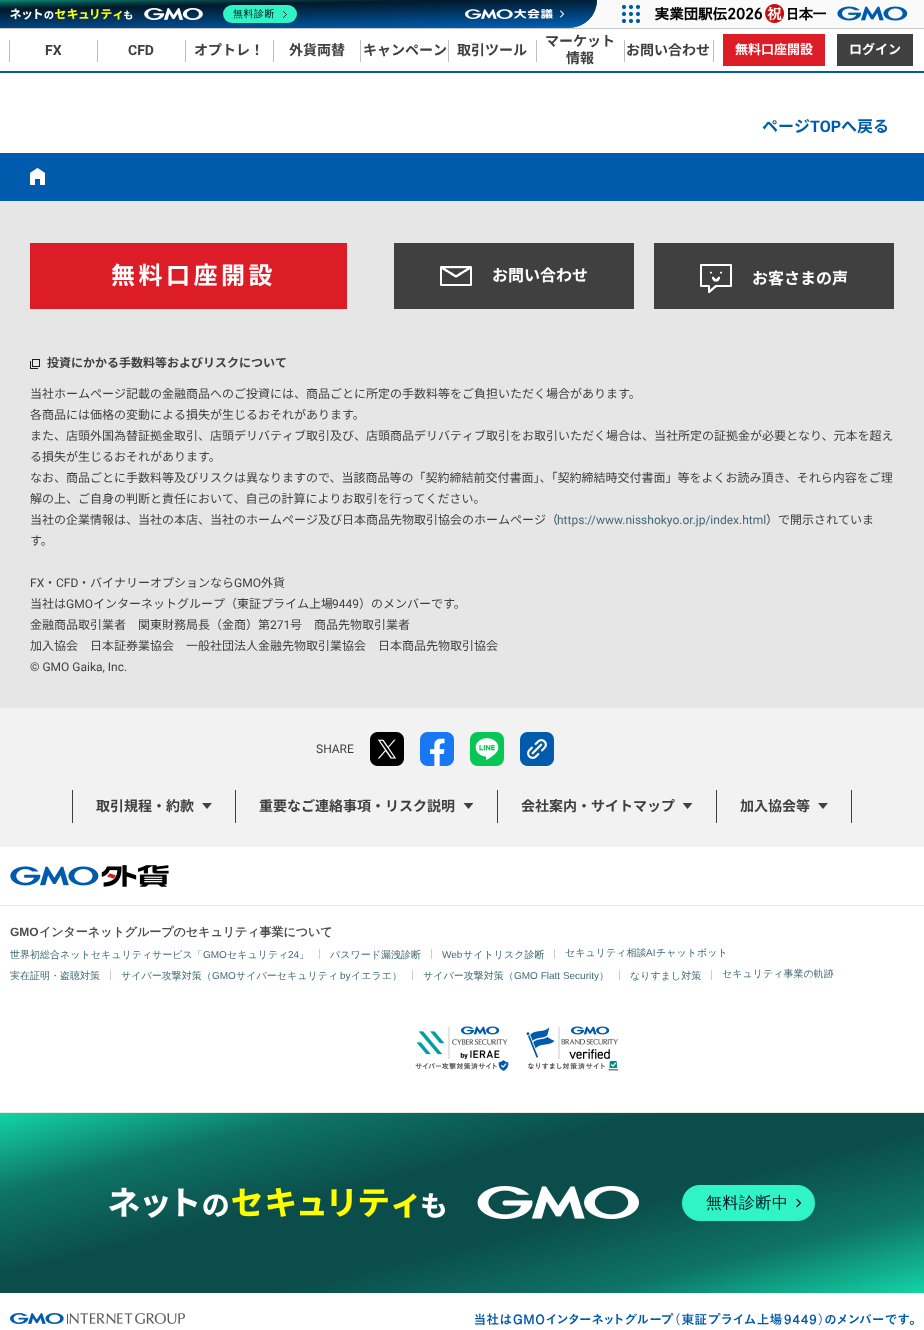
async function draw(canvas) {
  canvas.width = 924;
  canvas.height = 1330;
  const ctx = canvas.getContext('2d');
  ctx.miterLimit = 4;
  ctx.fontKerning = 'normal';
  function label(s, x, y, font, color) {
    ctx.font = font;
    ctx.fillStyle = color;
    ctx.fillText(s, x, y);
  }
  function rect(x, y, w, h, color) {
    ctx.fillStyle = color;
    ctx.fillRect(x, y, w, h);
  }
  function roundedRect(x, y, w, h, r, color) {
    ctx.fillStyle = color;
    ctx.beginPath();
    ctx.roundRect(x, y, w, h, r);
    ctx.fill();
  }
  async function image(src, x, y, w, h) {
    const img = new Image();
    img.src = src;
    await img.decode();
    ctx.drawImage(img, x, y, w, h);
  }
  let gradient, path;

  rect(0, 0, 924, 1330, '#fff');
  rect(569, 0, 355, 28, '#fafafa');
  rect(0, 28, 924, 1, '#c8c8c8');
  gradient = ctx.createLinearGradient(298, -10, 299, 38);
  gradient.addColorStop(0, '#13d4a5');
  gradient.addColorStop(0.31, '#0e7365');
  gradient.addColorStop(0.72, '#0b4d4b');
  ctx.fillStyle = gradient;
  ctx.beginPath();
  ctx.roundRect(0, 0, 597, 28, [0, 0, 28, 0]);
  ctx.fill();
  gradient = ctx.createLinearGradient(299, 38, 298, -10);
  gradient.addColorStop(0, '#019cd9');
  gradient.addColorStop(0.14, '#005bac');
  gradient.addColorStop(0.72, '#02192a');
  gradient.addColorStop(1, '#02192a00');
  ctx.fillStyle = gradient;
  ctx.beginPath();
  ctx.roundRect(0, 0, 597, 28, [0, 0, 28, 0]);
  ctx.fill();
  await image('assets/img1.png', 10, 8, 193, 12);
  roundedRect(223, 5, 74, 18, 9, '#30f4c5');
  ctx.letterSpacing = '0.5px';
  label('無料診断', 233, 17, '500 10px WenQuanYi Zen Hei', '#021725');
  path = new Path2D('M283.5 11.5L286.5 14.5L283.5 17.5');
  ctx.strokeStyle = '#021725';
  ctx.lineWidth = 0.9;
  ctx.lineCap = 'round';
  ctx.lineJoin = 'round';
  ctx.stroke(path);
  await image('assets/img2.png', 465, 9, 99, 10);
  await image('assets/img3.png', 621, 4, 20, 20);
  await image('assets/img4.png', 655, 4, 253, 19);
  rect(0, 71, 924, 2, '#005bac');
  rect(9, 40, 1, 22, '#bfbfbf');
  ctx.letterSpacing = '0px';
  label('FX', 45, 55, 'bold 14px Roboto', '#3f3f3f');
  rect(97, 40, 1, 22, '#bfbfbf');
  label('CFD', 128, 55, 'bold 14px Roboto', '#3f3f3f');
  rect(185, 40, 1, 22, '#bfbfbf');
  label('オプトレ！', 194, 55, 'bold 14px Noto Sans JP', '#3f3f3f');
  rect(273, 40, 1, 22, '#bfbfbf');
  label('外貨両替', 289, 55, 'bold 14px Noto Sans JP', '#3f3f3f');
  rect(360, 40, 1, 22, '#bfbfbf');
  label('キャンペーン', 363, 55, 'bold 14px Noto Sans JP', '#3f3f3f');
  rect(448, 40, 1, 22, '#bfbfbf');
  label('取引ツール', 457, 55, 'bold 14px Noto Sans JP', '#3f3f3f');
  rect(536, 40, 1, 22, '#bfbfbf');
  label('マーケット', 545, 46, 'bold 14px Noto Sans JP', '#3f3f3f');
  label('情報', 566, 63, 'bold 14px Noto Sans JP', '#3f3f3f');
  rect(624, 40, 1, 22, '#bfbfbf');
  label('お問い合わせ', 626, 55, 'bold 14px Noto Sans JP', '#3f3f3f');
  rect(713, 40, 1, 22, '#bfbfbf');
  rect(723, 34, 102, 32, '#dc1c26');
  label('無料口座開設', 735, 54, 'bold 13px Noto Sans JP', '#fff');
  rect(837, 34, 76, 32, '#404040');
  label('ログイン', 849, 54, 'bold 13px Noto Sans JP', '#fff');
  rect(0, 153, 924, 48, '#005bac');
  label('ページ', 762, 132, 'bold 16px Noto Sans JP', '#005bac');
  label('TOP', 810, 132, 'bold 16px Roboto', '#005bac');
  label('へ戻る', 841, 132, 'bold 16px Noto Sans JP', '#005bac');
  await image('assets/img5.png', 30, 168, 15, 17);
  rect(0, 201, 924, 507, '#e6e6e6');
  rect(30, 243, 317, 66, '#dc1c26');
  ctx.letterSpacing = '3.5px';
  label('無料口座開設', 111, 284, 'bold 24px Noto Sans JP', '#fff');
  rect(394, 243, 240, 66, '#404040');
  await image('assets/img6.png', 440, 266, 32, 20);
  ctx.letterSpacing = '0px';
  label('お問い合わせ', 492, 281, 'bold 16px Noto Sans JP', '#fff');
  rect(654, 243, 240, 66, '#404040');
  await image('assets/img7.png', 700, 264, 32, 29);
  label('お客さまの声', 752, 284, 'bold 16px Noto Sans JP', '#fff');
  await image('assets/img8.png', 30, 359, 10, 10);
  label('投資にかかる手数料等およびリスクについて', 47, 367, 'bold 12px Noto Sans JP', '#3f3f3f');
  label('当社ホームページ記載の金融商品へのご投資には、商品ごとに所定の手数料等をご負担いただく場合があります。', 30, 398, '12px Noto Sans JP', '#3f3f3f');
  label('各商品には価格の変動による損失が生じるおそれがあります。', 30, 419, '12px Noto Sans JP', '#3f3f3f');
  label('また、店頭外国為替証拠金取引、店頭デリバティブ取引及び、店頭商品デリバティブ取引をお取引いただく場合は、当社所定の証拠金が必要となり、元本を超え', 30, 440, '12px Noto Sans JP', '#3f3f3f');
  label('る損失が生じるおそれがあります。', 30, 461, '12px Noto Sans JP', '#3f3f3f');
  label('なお、商品ごとに手数料等及びリスクは異なりますので、当該商品等の「契約締結前交付書面」、「契約締結時交付書面」等をよくお読み頂き、それら内容をご理', 30, 482, '12px Noto Sans JP', '#3f3f3f');
  label('解の上、ご自身の判断と責任において、自己の計算によりお取引を行ってください。', 30, 503, '12px Noto Sans JP', '#3f3f3f');
  label('当社の企業情報は、当社の本店、当社のホームページ及び日本商品先物取引協会のホームページ（', 30, 524, '12px Noto Sans JP', '#3f3f3f');
  label('https://www.nisshokyo.or.jp/index.html', 557, 524, '12px Roboto', '#3f6974');
  label('）で開示されていま', 766, 524, '12px Noto Sans JP', '#3f3f3f');
  label('す。', 30, 545, '12px Noto Sans JP', '#3f3f3f');
  label('FX', 30, 587, '12px Roboto', '#3f3f3f');
  label('・', 44, 587, '12px Noto Sans JP', '#3f3f3f');
  label('CFD', 56, 587, '12px Roboto', '#3f3f3f');
  label('・バイナリーオプションなら', 78, 587, '12px Noto Sans JP', '#3f3f3f');
  label('GMO', 234, 587, '12px Roboto', '#3f3f3f');
  label('外貨', 261, 587, '12px Noto Sans JP', '#3f3f3f');
  label('当社は', 30, 608, '12px Noto Sans JP', '#3f3f3f');
  label('GMO', 66, 608, '12px Roboto', '#3f3f3f');
  label('インターネットグループ（東証プライム上場', 93, 608, '12px Noto Sans JP', '#3f3f3f');
  label('9449', 332, 608, '12px Roboto', '#3f3f3f');
  label('）のメンバーです。', 359, 608, '12px Noto Sans JP', '#3f3f3f');
  label('金融商品取引業者　関東財務局長（金商）第', 30, 629, '12px Noto Sans JP', '#3f3f3f');
  label('271', 270, 629, '12px Roboto', '#3f3f3f');
  label('号　商品先物取引業者', 290, 629, '12px Noto Sans JP', '#3f3f3f');
  label('加入協会　日本証券業協会　一般社団法人金融先物取引業協会　日本商品先物取引協会', 30, 650, '12px Noto Sans JP', '#3f3f3f');
  label('© GMO Gaika, Inc.', 30, 671, '12px Roboto', '#3f3f3f');
  rect(0, 708, 924, 139, '#f2f2f2');
  label('SHARE', 316, 753, '12px Roboto', '#3f3f3f');
  await image('assets/img9.png', 370, 732, 34, 34);
  await image('assets/img10.png', 420, 732, 34, 34);
  await image('assets/img11.png', 470, 732, 34, 34);
  await image('assets/img12.png', 520, 732, 34, 34);
  rect(235, 790, 1, 33, '#404040');
  rect(72, 790, 1, 33, '#404040');
  label('取引規程・約款', 96, 811, 'bold 14px Noto Sans JP', '#3f3f3f');
  ctx.fillStyle = '#404040';
  path = new Path2D('M202 803H212L207 809Z');
  ctx.fill(path);
  rect(497, 790, 1, 33, '#404040');
  label('重要なご連絡事項・リスク説明', 259, 811, 'bold 14px Noto Sans JP', '#3f3f3f');
  ctx.fillStyle = '#404040';
  path = new Path2D('M463.5 803H473V803.5L468.5 809Z');
  ctx.fill(path);
  rect(716, 790, 1, 33, '#404040');
  label('会社案内・サイトマップ', 521, 811, 'bold 14px Noto Sans JP', '#3f3f3f');
  ctx.fillStyle = '#404040';
  path = new Path2D('M683 803V803.5L687.5 809L692.5 803Z');
  ctx.fill(path);
  rect(851, 790, 1, 33, '#404040');
  label('加入協会等', 740, 811, 'bold 14px Noto Sans JP', '#3f3f3f');
  ctx.fillStyle = '#404040';
  path = new Path2D('M818 803L823 809L828 803Z');
  ctx.fill(path);
  await image('assets/img13.png', 10, 865, 159, 22);
  rect(0, 905, 924, 1, '#eaeaea');
  label('GMO', 10, 936, 'bold 12px Liberation Sans', '#4d4d4d');
  label('インターネットグループのセキュリティ事業について', 39, 936, 'bold 12px WenQuanYi Zen Hei', '#4d4d4d');
  label('世界初総合ネットセキュリティサービス「', 10, 958, '500 10px WenQuanYi Zen Hei', '#3f6974');
  label('GMO', 203, 958, '10px Liberation Sans', '#3f6974');
  label('セキュリティ', 227, 958, '500 10px WenQuanYi Zen Hei', '#3f6974');
  label('24', 288, 958, '10px Liberation Sans', '#3f6974');
  label('」', 299, 958, '500 10px WenQuanYi Zen Hei', '#3f6974');
  rect(319, 949, 1, 10, '#ccc');
  label('パスワード漏洩診断', 330, 958, '500 10px WenQuanYi Zen Hei', '#3f6974');
  rect(431, 949, 1, 10, '#ccc');
  label('Web', 442, 958, '10px Liberation Sans', '#3f6974');
  label('サイトリスク診断', 463, 958, '500 10px WenQuanYi Zen Hei', '#3f6974');
  rect(554, 949, 1, 10, '#ccc');
  label('セキュリティ相談', 565, 956, '500 10px WenQuanYi Zen Hei', '#3f6974');
  label('AI', 646, 956, '10px Liberation Sans', '#3f6974');
  label('チャットボット', 656, 956, '500 10px WenQuanYi Zen Hei', '#3f6974');
  label('実在証明・盗聴対策', 10, 979, '500 10px WenQuanYi Zen Hei', '#3f6974');
  rect(110, 970, 1, 10, '#ccc');
  label('サイバー攻撃対策（', 121, 979, '500 10px WenQuanYi Zen Hei', '#3f6974');
  label('GMO', 212, 979, '10px Liberation Sans', '#3f6974');
  label('サイバーセキュリティ', 236, 979, '500 10px WenQuanYi Zen Hei', '#3f6974');
  label('by', 340, 979, '10px Liberation Sans', '#3f6974');
  label('イエラエ）', 351, 979, '500 10px WenQuanYi Zen Hei', '#3f6974');
  rect(412, 970, 1, 10, '#ccc');
  label('サイバー攻撃対策（', 423, 979, '500 10px WenQuanYi Zen Hei', '#3f6974');
  label('GMO Flatt Security', 514, 979, '10px Liberation Sans', '#3f6974');
  label('）', 599, 979, '500 10px WenQuanYi Zen Hei', '#3f6974');
  rect(619, 970, 1, 10, '#ccc');
  label('なりすまし対策', 630, 979, '500 10px WenQuanYi Zen Hei', '#3f6974');
  rect(711, 970, 1, 10, '#ccc');
  label('セキュリティ事業の軌跡', 722, 977, '500 10px WenQuanYi Zen Hei', '#3f6974');
  await image('assets/img14.png', 415, 1026, 94, 45);
  await image('assets/img15.png', 526, 1026, 92, 45);
  rect(0, 1112, 924, 1, '#eaeaea');
  gradient = ctx.createLinearGradient(414, 1010, 510, 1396);
  gradient.addColorStop(0, '#13d4a5');
  gradient.addColorStop(0.2, '#0e7365');
  gradient.addColorStop(0.4, '#0b4d4b');
  gradient.addColorStop(0.6, '#0b4d4b');
  gradient.addColorStop(0.8, '#0e7365');
  gradient.addColorStop(1, '#13d4a5');
  ctx.fillStyle = gradient;
  ctx.fillRect(0, 1113, 924, 180);
  await image('assets/img16.png', 109, 1186, 530, 33);
  roundedRect(682, 1185, 133, 36, 18, '#30f4c5');
  ctx.letterSpacing = '0.5px';
  label('無料診断中', 706, 1208, '500 16px WenQuanYi Zen Hei', '#021725');
  path = new Path2D('M797 1199.5L800.5 1203L797 1206.5');
  ctx.lineWidth = 1.2;
  ctx.stroke(path);
  await image('assets/img17.png', 10, 1313, 175, 11);
  await image('assets/img18.png', 475, 1313, 439, 12);
}

draw(document.querySelector('canvas'));
